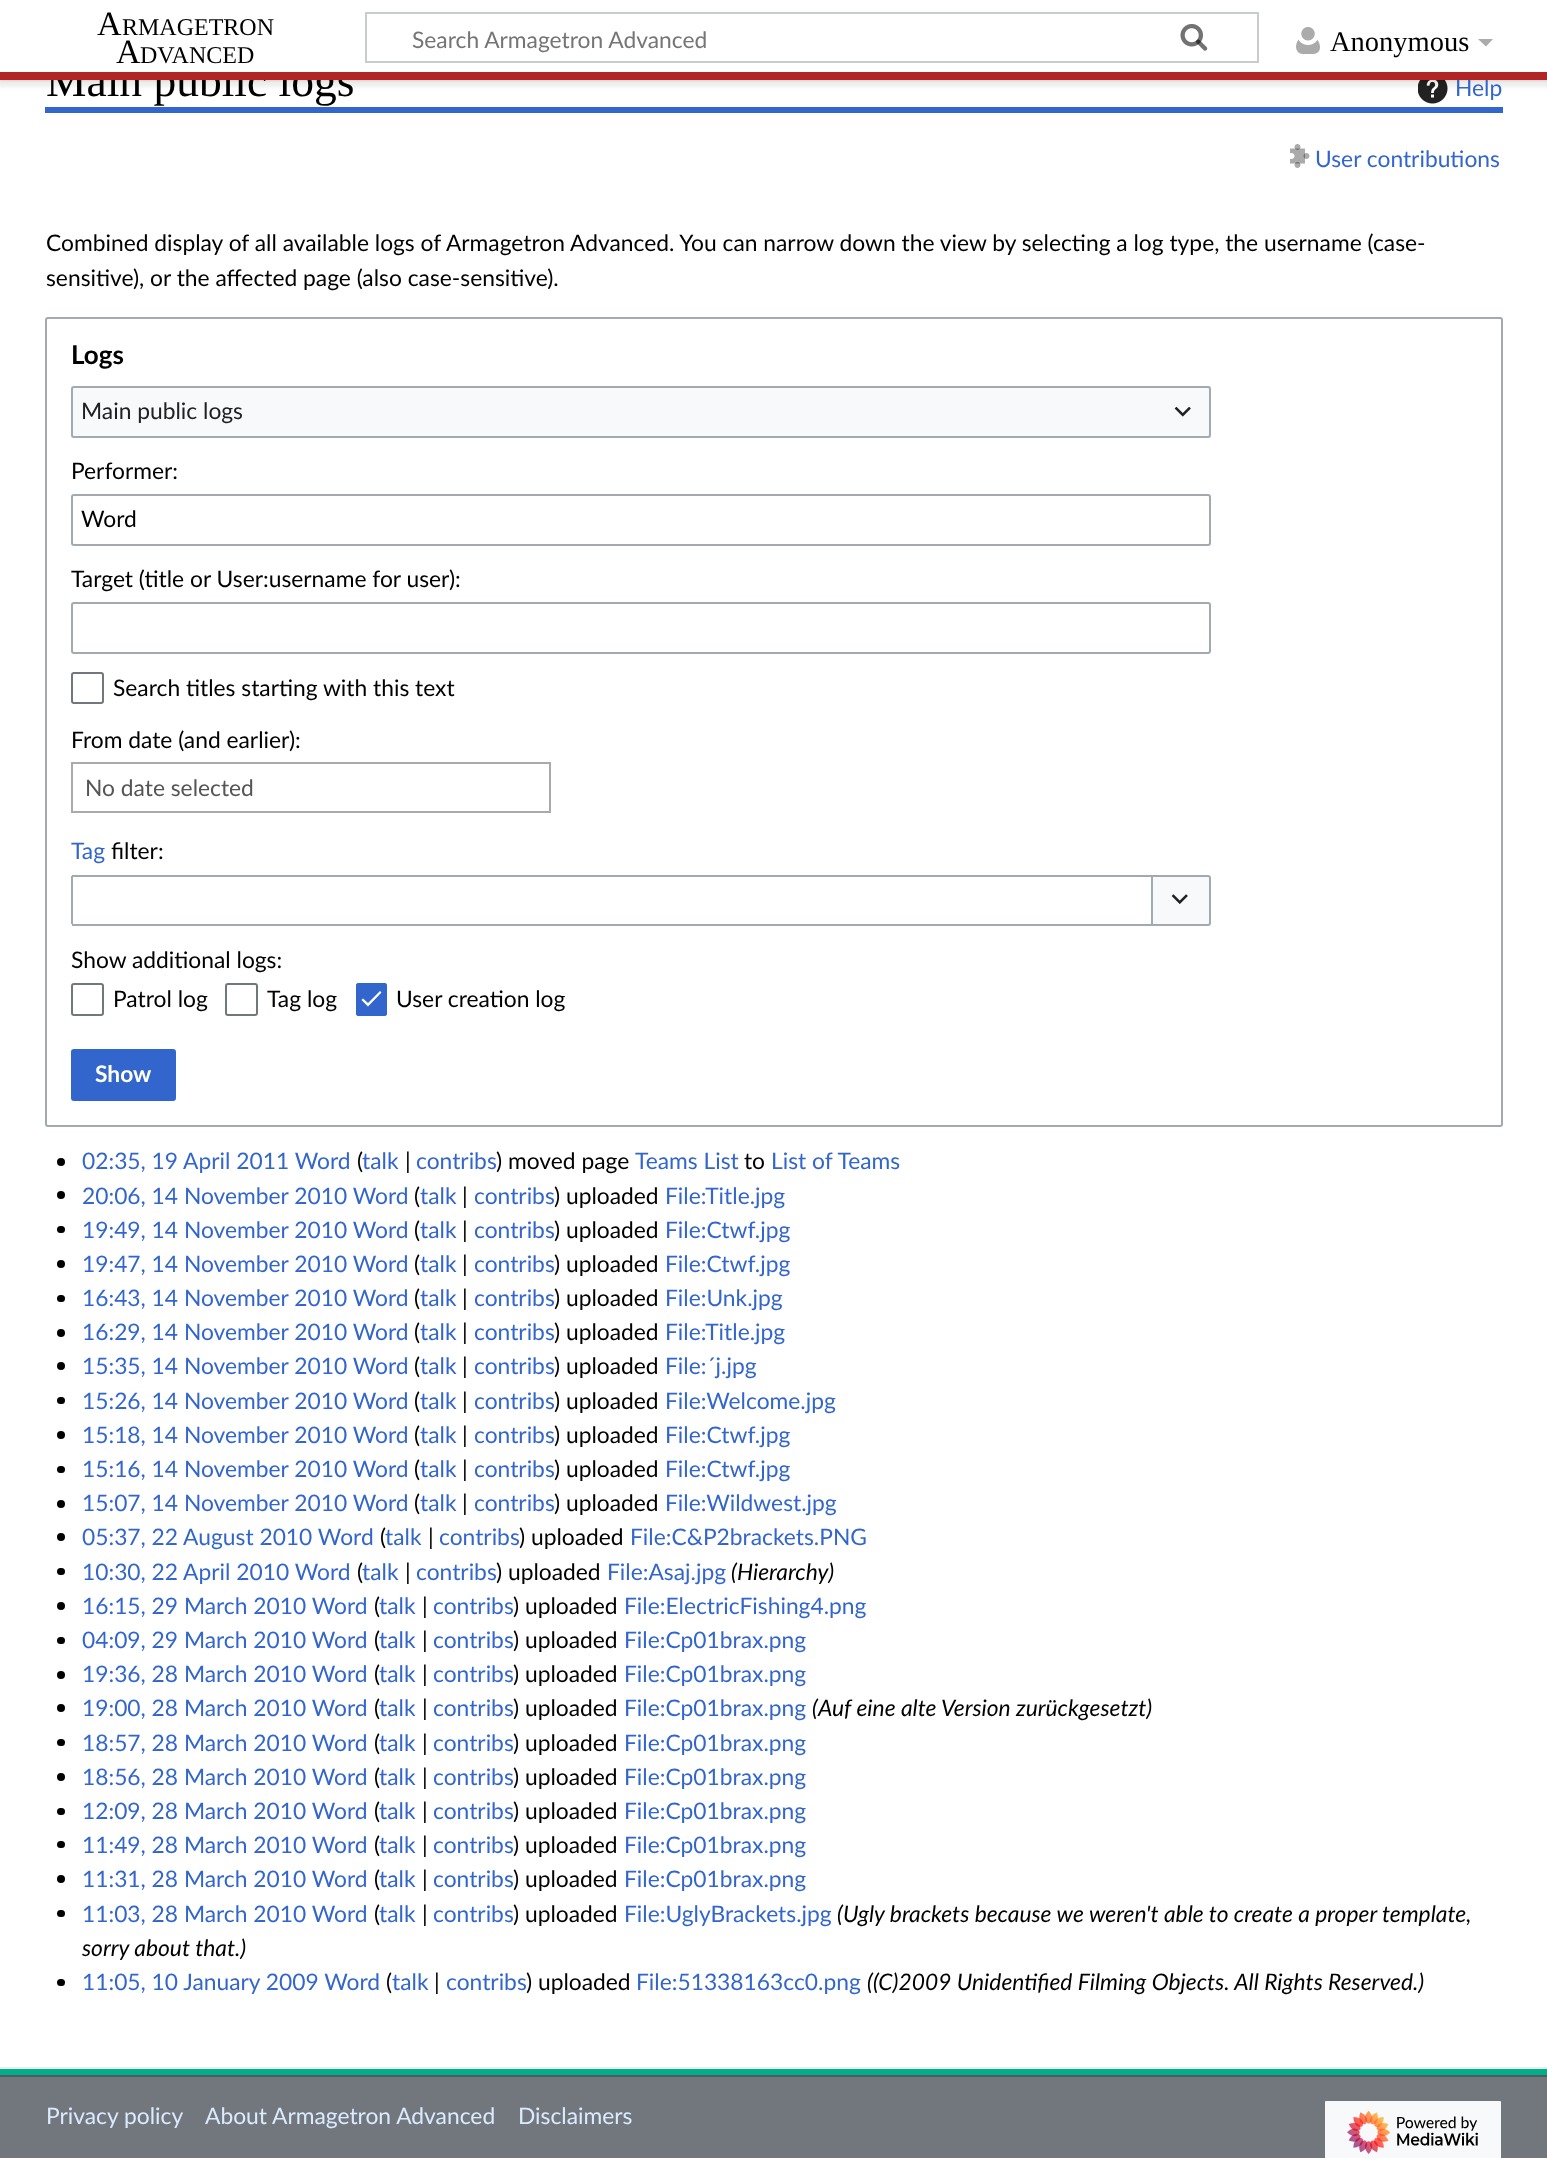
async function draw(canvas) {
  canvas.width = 1547;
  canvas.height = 2158;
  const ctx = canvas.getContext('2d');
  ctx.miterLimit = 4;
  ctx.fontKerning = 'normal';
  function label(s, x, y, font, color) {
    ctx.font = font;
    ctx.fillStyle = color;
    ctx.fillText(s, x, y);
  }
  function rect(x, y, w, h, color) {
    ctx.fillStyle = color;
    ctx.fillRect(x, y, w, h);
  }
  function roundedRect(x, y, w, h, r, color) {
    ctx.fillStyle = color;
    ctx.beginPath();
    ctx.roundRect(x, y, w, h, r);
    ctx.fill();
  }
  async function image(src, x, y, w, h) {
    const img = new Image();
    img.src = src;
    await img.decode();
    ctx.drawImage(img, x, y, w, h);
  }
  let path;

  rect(0, 0, 1547, 2158, '#72777d');
  rect(0, 80, 1547, 1987, '#fff');
  label('Main public logs', 46, 96, '45.5px Liberation Serif', '#000');
  await image('assets/img4.png', 1418, 80, 30, 24);
  ctx.fillStyle = '#00000033';
  ctx.filter = 'blur(1.5px)';
  ctx.beginPath();
  ctx.rect(0, 72, 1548, 8);
  ctx.fill();
  ctx.filter = 'none';
  ctx.fillStyle = '#00000012';
  ctx.filter = 'blur(2px)';
  ctx.beginPath();
  ctx.rect(-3, 74, 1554, 13);
  ctx.fill();
  ctx.filter = 'none';
  rect(0, 0, 1547, 72, '#fff');
  label('A', 97, 35, '34px Liberation Serif', '#000');
  label('RMAGETRON', 122, 35, '24px Liberation Serif', '#000');
  label('A', 116, 63, '34px Liberation Serif', '#000');
  label('DVANCED', 140, 63, '24px Liberation Serif', '#000');
  ctx.strokeStyle = '#c8ccd1';
  ctx.lineWidth = 2;
  ctx.strokeRect(366, 13, 892, 49);
  await image('assets/img1.png', 1180, 24, 28, 27);
  label('Search Armagetron Advanced', 412, 48, '22.8px Lato', '#757575');
  await image('assets/img2.png', 1180, 24, 28, 27);
  await image('assets/img3.png', 1296, 27, 24, 27);
  label('Anonymous', 1330, 51, '28.5px Liberation Serif', '#000');
  ctx.fillStyle = '#ababab';
  path = new Path2D('M1493 39L1486 46.5L1478 39Z');
  ctx.fill(path);
  rect(0, 2069, 1547, 6, '#00af89');
  rect(0, 2067, 1547, 2, '#eaecf0');
  rect(45, 107, 1458, 6, '#36c');
  label('Help', 1455, 96, '22.8px Lato', '#36c');
  await image('assets/img5.png', 1290, 144, 20, 24);
  label('User contributions', 1315, 167, '22.8px Lato', '#36c');
  label('Combined display of all available logs of Armagetron Advanced. You can narrow down the view by selecting a log type, the username (case-', 46, 251, '22.8px Lato', '#000');
  label('sensitive), or the affected page (also case-sensitive).', 46, 286, '22.8px Lato', '#000');
  ctx.beginPath();
  ctx.roundRect(46, 318, 1456, 808, 2);
  ctx.strokeStyle = '#a2a9b1';
  ctx.stroke();
  label('Logs', 71, 364, 'bold 26px Lato', '#000');
  rect(71, 386, 1140, 52, '#f8f9fa');
  ctx.beginPath();
  ctx.roundRect(72, 387, 1138, 50, 2);
  ctx.stroke();
  label('Main public logs', 81, 419, '22.8px Lato', '#202122');
  await image('assets/img6.png', 1174, 406, 17, 11);
  label('Performer:', 71, 479, '22.8px Lato', '#000');
  ctx.beginPath();
  ctx.roundRect(72, 495, 1138, 50, 2);
  ctx.stroke();
  label('Word', 81, 527, '22.8px Lato', '#000');
  label('Target (title or User:username for user):', 71, 587, '22.8px Lato', '#000');
  ctx.beginPath();
  ctx.roundRect(72, 603, 1138, 50, 2);
  ctx.stroke();
  ctx.beginPath();
  ctx.roundRect(72, 673, 31, 30, 2);
  ctx.strokeStyle = '#72777d';
  ctx.stroke();
  label('Search titles starting with this text', 113, 696, '22.8px Lato', '#000');
  label('From date (and earlier):', 71, 748, '22.8px Lato', '#000');
  ctx.strokeStyle = '#aaa';
  ctx.strokeRect(72, 763, 478, 49);
  label('No date selected', 85, 796, '22.8px Lato', '#555');
  label('Tag', 71, 859, '22.8px Lato', '#36c');
  label('filter:', 111, 859, '22.8px Lato', '#000');
  rect(72, 875, 1079, 2, '#a2a9b1');
  rect(72, 924, 1079, 2, '#a2a9b1');
  rect(71, 876, 2, 48, '#a2a9b1');
  ctx.fillStyle = '#f8f9fa';
  ctx.beginPath();
  ctx.roundRect(1152, 876, 58, 49, [0, 2, 2, 0]);
  ctx.fill();
  ctx.strokeStyle = '#a2a9b1';
  ctx.stroke();
  await image('assets/img7.png', 1171, 894, 17, 10);
  label('Show additional logs:', 71, 968, '22.8px Lato', '#000');
  ctx.beginPath();
  ctx.roundRect(72, 984, 31, 31, 2);
  ctx.strokeStyle = '#72777d';
  ctx.stroke();
  label('Patrol log', 113, 1007, '22.8px Lato', '#000');
  ctx.beginPath();
  ctx.roundRect(226, 984, 31, 31, 2);
  ctx.stroke();
  label('Tag log', 267, 1007, '22.8px Lato', '#000');
  roundedRect(356, 983, 31, 33, 3, '#36c');
  ctx.fillStyle = '#fff';
  path = new Path2D('M368 1003L363 998.5L361.5 1000L368 1006.5L381.5 992.5L380 991Z');
  ctx.fill(path);
  ctx.beginPath();
  ctx.roundRect(357, 984, 29, 31, 2);
  ctx.strokeStyle = '#36c';
  ctx.stroke();
  label('User creation log', 396, 1007, '22.8px Lato', '#000');
  ctx.fillStyle = '#36c';
  ctx.beginPath();
  ctx.roundRect(72, 1050, 103, 50, 2);
  ctx.fill();
  ctx.stroke();
  label('Show', 95, 1082, 'bold 22.8px Lato', '#fff');
  ctx.fillStyle = '#000';
  ctx.beginPath();
  ctx.arc(61, 1162, 4, 0, 2 * Math.PI);
  ctx.fill();
  label('02:35, 19 April 2011 Word', 82, 1169, '22.8px Lato', '#36c');
  label('(', 357, 1169, '22.8px Lato', '#000');
  label('talk', 362, 1169, '22.8px Lato', '#36c');
  label('|', 405, 1169, '22.8px Lato', '#000');
  label('contribs', 416, 1169, '22.8px Lato', '#36c');
  label(')', 496, 1169, '22.8px Lato', '#000');
  label('moved page', 508, 1169, '22.8px Lato', '#000');
  label('Teams List', 635, 1169, '22.8px Lato', '#36c');
  label('to', 744, 1169, '22.8px Lato', '#000');
  label('List of Teams', 771, 1169, '22.8px Lato', '#36c');
  ctx.fillStyle = '#000';
  ctx.beginPath();
  ctx.arc(61, 1195, 4, 0, 2 * Math.PI);
  ctx.fill();
  label('20:06, 14 November 2010 Word', 82, 1204, '22.8px Lato', '#36c');
  label('(', 414, 1204, '22.8px Lato', '#000');
  label('talk', 420, 1204, '22.8px Lato', '#36c');
  label('|', 462, 1204, '22.8px Lato', '#000');
  label('contribs', 474, 1204, '22.8px Lato', '#36c');
  label(') uploaded', 554, 1204, '22.8px Lato', '#000');
  label('File:Title.jpg', 665, 1204, '22.8px Lato', '#36c');
  roundedRect(57, 1226, 8, 7, 3.5, '#000');
  label('19:49, 14 November 2010 Word', 82, 1238, '22.8px Lato', '#36c');
  label('(', 414, 1238, '22.8px Lato', '#000');
  label('talk', 420, 1238, '22.8px Lato', '#36c');
  label('|', 462, 1238, '22.8px Lato', '#000');
  label('contribs', 474, 1238, '22.8px Lato', '#36c');
  label(') uploaded', 554, 1238, '22.8px Lato', '#000');
  label('File:Ctwf.jpg', 665, 1238, '22.8px Lato', '#36c');
  ctx.fillStyle = '#000';
  ctx.beginPath();
  ctx.arc(61, 1264, 4, 0, 2 * Math.PI);
  ctx.fill();
  label('19:47, 14 November 2010 Word', 82, 1272, '22.8px Lato', '#36c');
  label('(', 414, 1272, '22.8px Lato', '#000');
  label('talk', 420, 1272, '22.8px Lato', '#36c');
  label('|', 462, 1272, '22.8px Lato', '#000');
  label('contribs', 474, 1272, '22.8px Lato', '#36c');
  label(') uploaded', 554, 1272, '22.8px Lato', '#000');
  label('File:Ctwf.jpg', 665, 1272, '22.8px Lato', '#36c');
  roundedRect(57, 1295, 8, 7, 3.5, '#000');
  label('16:43, 14 November 2010 Word', 82, 1306, '22.8px Lato', '#36c');
  label('(', 414, 1306, '22.8px Lato', '#000');
  label('talk', 420, 1306, '22.8px Lato', '#36c');
  label('|', 462, 1306, '22.8px Lato', '#000');
  label('contribs', 474, 1306, '22.8px Lato', '#36c');
  label(') uploaded', 554, 1306, '22.8px Lato', '#000');
  label('File:Unk.jpg', 665, 1306, '22.8px Lato', '#36c');
  ctx.fillStyle = '#000';
  ctx.beginPath();
  ctx.arc(61, 1333, 4, 0, 2 * Math.PI);
  ctx.fill();
  label('16:29, 14 November 2010 Word', 82, 1340, '22.8px Lato', '#36c');
  label('(', 414, 1340, '22.8px Lato', '#000');
  label('talk', 420, 1340, '22.8px Lato', '#36c');
  label('|', 462, 1340, '22.8px Lato', '#000');
  label('contribs', 474, 1340, '22.8px Lato', '#36c');
  label(') uploaded', 554, 1340, '22.8px Lato', '#000');
  label('File:Title.jpg', 665, 1340, '22.8px Lato', '#36c');
  ctx.fillStyle = '#000';
  ctx.beginPath();
  ctx.arc(61, 1366, 4, 0, 2 * Math.PI);
  ctx.fill();
  label('15:35, 14 November 2010 Word', 82, 1374, '22.8px Lato', '#36c');
  label('(', 414, 1374, '22.8px Lato', '#000');
  label('talk', 420, 1374, '22.8px Lato', '#36c');
  label('|', 462, 1374, '22.8px Lato', '#000');
  label('contribs', 474, 1374, '22.8px Lato', '#36c');
  label(') uploaded', 554, 1374, '22.8px Lato', '#000');
  label('File:´j.jpg', 665, 1374, '22.8px Lato', '#36c');
  roundedRect(57, 1397, 8, 7, 3.5, '#000');
  label('15:26, 14 November 2010 Word', 82, 1409, '22.8px Lato', '#36c');
  label('(', 414, 1409, '22.8px Lato', '#000');
  label('talk', 420, 1409, '22.8px Lato', '#36c');
  label('|', 462, 1409, '22.8px Lato', '#000');
  label('contribs', 474, 1409, '22.8px Lato', '#36c');
  label(') uploaded', 554, 1409, '22.8px Lato', '#000');
  label('File:Welcome.jpg', 665, 1409, '22.8px Lato', '#36c');
  ctx.fillStyle = '#000';
  ctx.beginPath();
  ctx.arc(61, 1435, 4, 0, 2 * Math.PI);
  ctx.fill();
  label('15:18, 14 November 2010 Word', 82, 1443, '22.8px Lato', '#36c');
  label('(', 414, 1443, '22.8px Lato', '#000');
  label('talk', 420, 1443, '22.8px Lato', '#36c');
  label('|', 462, 1443, '22.8px Lato', '#000');
  label('contribs', 474, 1443, '22.8px Lato', '#36c');
  label(') uploaded', 554, 1443, '22.8px Lato', '#000');
  label('File:Ctwf.jpg', 665, 1443, '22.8px Lato', '#36c');
  roundedRect(57, 1466, 8, 7, 3.5, '#000');
  label('15:16, 14 November 2010 Word', 82, 1477, '22.8px Lato', '#36c');
  label('(', 414, 1477, '22.8px Lato', '#000');
  label('talk', 420, 1477, '22.8px Lato', '#36c');
  label('|', 462, 1477, '22.8px Lato', '#000');
  label('contribs', 474, 1477, '22.8px Lato', '#36c');
  label(') uploaded', 554, 1477, '22.8px Lato', '#000');
  label('File:Ctwf.jpg', 665, 1477, '22.8px Lato', '#36c');
  ctx.fillStyle = '#000';
  ctx.beginPath();
  ctx.arc(61, 1504, 4, 0, 2 * Math.PI);
  ctx.fill();
  label('15:07, 14 November 2010 Word', 82, 1511, '22.8px Lato', '#36c');
  label('(', 414, 1511, '22.8px Lato', '#000');
  label('talk', 420, 1511, '22.8px Lato', '#36c');
  label('|', 462, 1511, '22.8px Lato', '#000');
  label('contribs', 474, 1511, '22.8px Lato', '#36c');
  label(') uploaded', 554, 1511, '22.8px Lato', '#000');
  label('File:Wildwest.jpg', 665, 1511, '22.8px Lato', '#36c');
  ctx.fillStyle = '#000';
  ctx.beginPath();
  ctx.arc(61, 1537, 4, 0, 2 * Math.PI);
  ctx.fill();
  label('05:37, 22 August 2010 Word', 82, 1545, '22.8px Lato', '#36c');
  label('(', 380, 1545, '22.8px Lato', '#000');
  label('talk', 385, 1545, '22.8px Lato', '#36c');
  label('|', 428, 1545, '22.8px Lato', '#000');
  label('contribs', 439, 1545, '22.8px Lato', '#36c');
  label(') uploaded', 519, 1545, '22.8px Lato', '#000');
  label('File:C&P2brackets.PNG', 630, 1545, '22.8px Lato', '#36c');
  roundedRect(57, 1568, 8, 7, 3.5, '#000');
  label('10:30, 22 April 2010 Word', 82, 1580, '22.8px Lato', '#36c');
  label('(', 357, 1580, '22.8px Lato', '#000');
  label('talk', 362, 1580, '22.8px Lato', '#36c');
  label('|', 405, 1580, '22.8px Lato', '#000');
  label('contribs', 416, 1580, '22.8px Lato', '#36c');
  label(') uploaded', 496, 1580, '22.8px Lato', '#000');
  label('File:Asaj.jpg', 607, 1580, '22.8px Lato', '#36c');
  label('(Hierarchy)', 731, 1580, 'italic 22.8px Lato', '#000');
  ctx.beginPath();
  ctx.arc(61, 1606, 4, 0, 2 * Math.PI);
  ctx.fill();
  label('16:15, 29 March 2010 Word', 82, 1614, '22.8px Lato', '#36c');
  label('(', 374, 1614, '22.8px Lato', '#000');
  label('talk', 379, 1614, '22.8px Lato', '#36c');
  label('|', 422, 1614, '22.8px Lato', '#000');
  label('contribs', 433, 1614, '22.8px Lato', '#36c');
  label(') uploaded', 513, 1614, '22.8px Lato', '#000');
  label('File:ElectricFishing4.png', 624, 1614, '22.8px Lato', '#36c');
  roundedRect(57, 1637, 8, 7, 3.5, '#000');
  label('04:09, 29 March 2010 Word', 82, 1648, '22.8px Lato', '#36c');
  label('(', 374, 1648, '22.8px Lato', '#000');
  label('talk', 379, 1648, '22.8px Lato', '#36c');
  label('|', 422, 1648, '22.8px Lato', '#000');
  label('contribs', 433, 1648, '22.8px Lato', '#36c');
  label(') uploaded', 513, 1648, '22.8px Lato', '#000');
  label('File:Cp01brax.png', 624, 1648, '22.8px Lato', '#36c');
  ctx.fillStyle = '#000';
  ctx.beginPath();
  ctx.arc(61, 1675, 4, 0, 2 * Math.PI);
  ctx.fill();
  label('19:36, 28 March 2010 Word', 82, 1682, '22.8px Lato', '#36c');
  label('(', 374, 1682, '22.8px Lato', '#000');
  label('talk', 379, 1682, '22.8px Lato', '#36c');
  label('|', 422, 1682, '22.8px Lato', '#000');
  label('contribs', 433, 1682, '22.8px Lato', '#36c');
  label(') uploaded', 513, 1682, '22.8px Lato', '#000');
  label('File:Cp01brax.png', 624, 1682, '22.8px Lato', '#36c');
  ctx.fillStyle = '#000';
  ctx.beginPath();
  ctx.arc(61, 1708, 4, 0, 2 * Math.PI);
  ctx.fill();
  label('19:00, 28 March 2010 Word', 82, 1716, '22.8px Lato', '#36c');
  label('(', 374, 1716, '22.8px Lato', '#000');
  label('talk', 379, 1716, '22.8px Lato', '#36c');
  label('|', 422, 1716, '22.8px Lato', '#000');
  label('contribs', 433, 1716, '22.8px Lato', '#36c');
  label(') uploaded', 513, 1716, '22.8px Lato', '#000');
  label('File:Cp01brax.png', 624, 1716, '22.8px Lato', '#36c');
  label('(Auf eine alte Version zurückgesetzt)', 812, 1716, 'italic 22.8px Lato', '#000');
  roundedRect(57, 1739, 8, 7, 3.5, '#000');
  label('18:57, 28 March 2010 Word', 82, 1751, '22.8px Lato', '#36c');
  label('(', 374, 1751, '22.8px Lato', '#000');
  label('talk', 379, 1751, '22.8px Lato', '#36c');
  label('|', 422, 1751, '22.8px Lato', '#000');
  label('contribs', 433, 1751, '22.8px Lato', '#36c');
  label(') uploaded', 513, 1751, '22.8px Lato', '#000');
  label('File:Cp01brax.png', 624, 1751, '22.8px Lato', '#36c');
  ctx.fillStyle = '#000';
  ctx.beginPath();
  ctx.arc(61, 1777, 4, 0, 2 * Math.PI);
  ctx.fill();
  label('18:56, 28 March 2010 Word', 82, 1785, '22.8px Lato', '#36c');
  label('(', 374, 1785, '22.8px Lato', '#000');
  label('talk', 379, 1785, '22.8px Lato', '#36c');
  label('|', 422, 1785, '22.8px Lato', '#000');
  label('contribs', 433, 1785, '22.8px Lato', '#36c');
  label(') uploaded', 513, 1785, '22.8px Lato', '#000');
  label('File:Cp01brax.png', 624, 1785, '22.8px Lato', '#36c');
  roundedRect(57, 1808, 8, 7, 3.5, '#000');
  label('12:09, 28 March 2010 Word', 82, 1819, '22.8px Lato', '#36c');
  label('(', 374, 1819, '22.8px Lato', '#000');
  label('talk', 379, 1819, '22.8px Lato', '#36c');
  label('|', 422, 1819, '22.8px Lato', '#000');
  label('contribs', 433, 1819, '22.8px Lato', '#36c');
  label(') uploaded', 513, 1819, '22.8px Lato', '#000');
  label('File:Cp01brax.png', 624, 1819, '22.8px Lato', '#36c');
  roundedRect(57, 1841, 8, 7, 3.5, '#000');
  label('11:49, 28 March 2010 Word', 82, 1853, '22.8px Lato', '#36c');
  label('(', 374, 1853, '22.8px Lato', '#000');
  label('talk', 379, 1853, '22.8px Lato', '#36c');
  label('|', 422, 1853, '22.8px Lato', '#000');
  label('contribs', 433, 1853, '22.8px Lato', '#36c');
  label(') uploaded', 513, 1853, '22.8px Lato', '#000');
  label('File:Cp01brax.png', 624, 1853, '22.8px Lato', '#36c');
  ctx.fillStyle = '#000';
  ctx.beginPath();
  ctx.arc(61, 1879, 4, 0, 2 * Math.PI);
  ctx.fill();
  label('11:31, 28 March 2010 Word', 82, 1887, '22.8px Lato', '#36c');
  label('(', 374, 1887, '22.8px Lato', '#000');
  label('talk', 379, 1887, '22.8px Lato', '#36c');
  label('|', 422, 1887, '22.8px Lato', '#000');
  label('contribs', 433, 1887, '22.8px Lato', '#36c');
  label(') uploaded', 513, 1887, '22.8px Lato', '#000');
  label('File:Cp01brax.png', 624, 1887, '22.8px Lato', '#36c');
  roundedRect(57, 1910, 8, 7, 3.5, '#000');
  label('11:03, 28 March 2010 Word', 82, 1922, '22.8px Lato', '#36c');
  label('(', 374, 1922, '22.8px Lato', '#000');
  label('talk', 379, 1922, '22.8px Lato', '#36c');
  label('|', 422, 1922, '22.8px Lato', '#000');
  label('contribs', 433, 1922, '22.8px Lato', '#36c');
  label(') uploaded', 513, 1922, '22.8px Lato', '#000');
  label('File:UglyBrackets.jpg', 624, 1922, '22.8px Lato', '#36c');
  label('(Ugly brackets because we weren\'t able to create a proper template,', 837, 1922, 'italic 22.8px Lato', '#000');
  label('sorry about that.)', 82, 1956, 'italic 22.8px Lato', '#000');
  roundedRect(57, 1979, 8, 7, 3.5, '#000');
  label('11:05, 10 January 2009 Word', 82, 1990, '22.8px Lato', '#36c');
  label('(', 386, 1990, '22.8px Lato', '#000');
  label('talk', 392, 1990, '22.8px Lato', '#36c');
  label('|', 434, 1990, '22.8px Lato', '#000');
  label('contribs', 446, 1990, '22.8px Lato', '#36c');
  label(') uploaded', 526, 1990, '22.8px Lato', '#000');
  label('File:51338163cc0.png', 636, 1990, '22.8px Lato', '#36c');
  label('((C)2009 Unidentified Filming Objects. All Rights Reserved.)', 867, 1990, 'italic 22.8px Lato', '#000');
  rect(0, 72, 1547, 8, '#b32424');
  rect(0, 2075, 1547, 2, '#54595d');
  label('Privacy policy', 46, 2124, '22.8px Lato', '#dbeaff');
  label('About Armagetron Advanced', 205, 2124, '22.8px Lato', '#dbeaff');
  label('Disclaimers', 518, 2124, '22.8px Lato', '#dbeaff');
  ctx.fillStyle = '#f8f9fa';
  ctx.beginPath();
  ctx.roundRect(1324, 2100, 178, 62, 2);
  ctx.fill();
  ctx.strokeStyle = '#72777d';
  ctx.stroke();
  await image('assets/img8.png', 1347, 2110, 131, 44);
}

draw(document.querySelector('canvas'));
